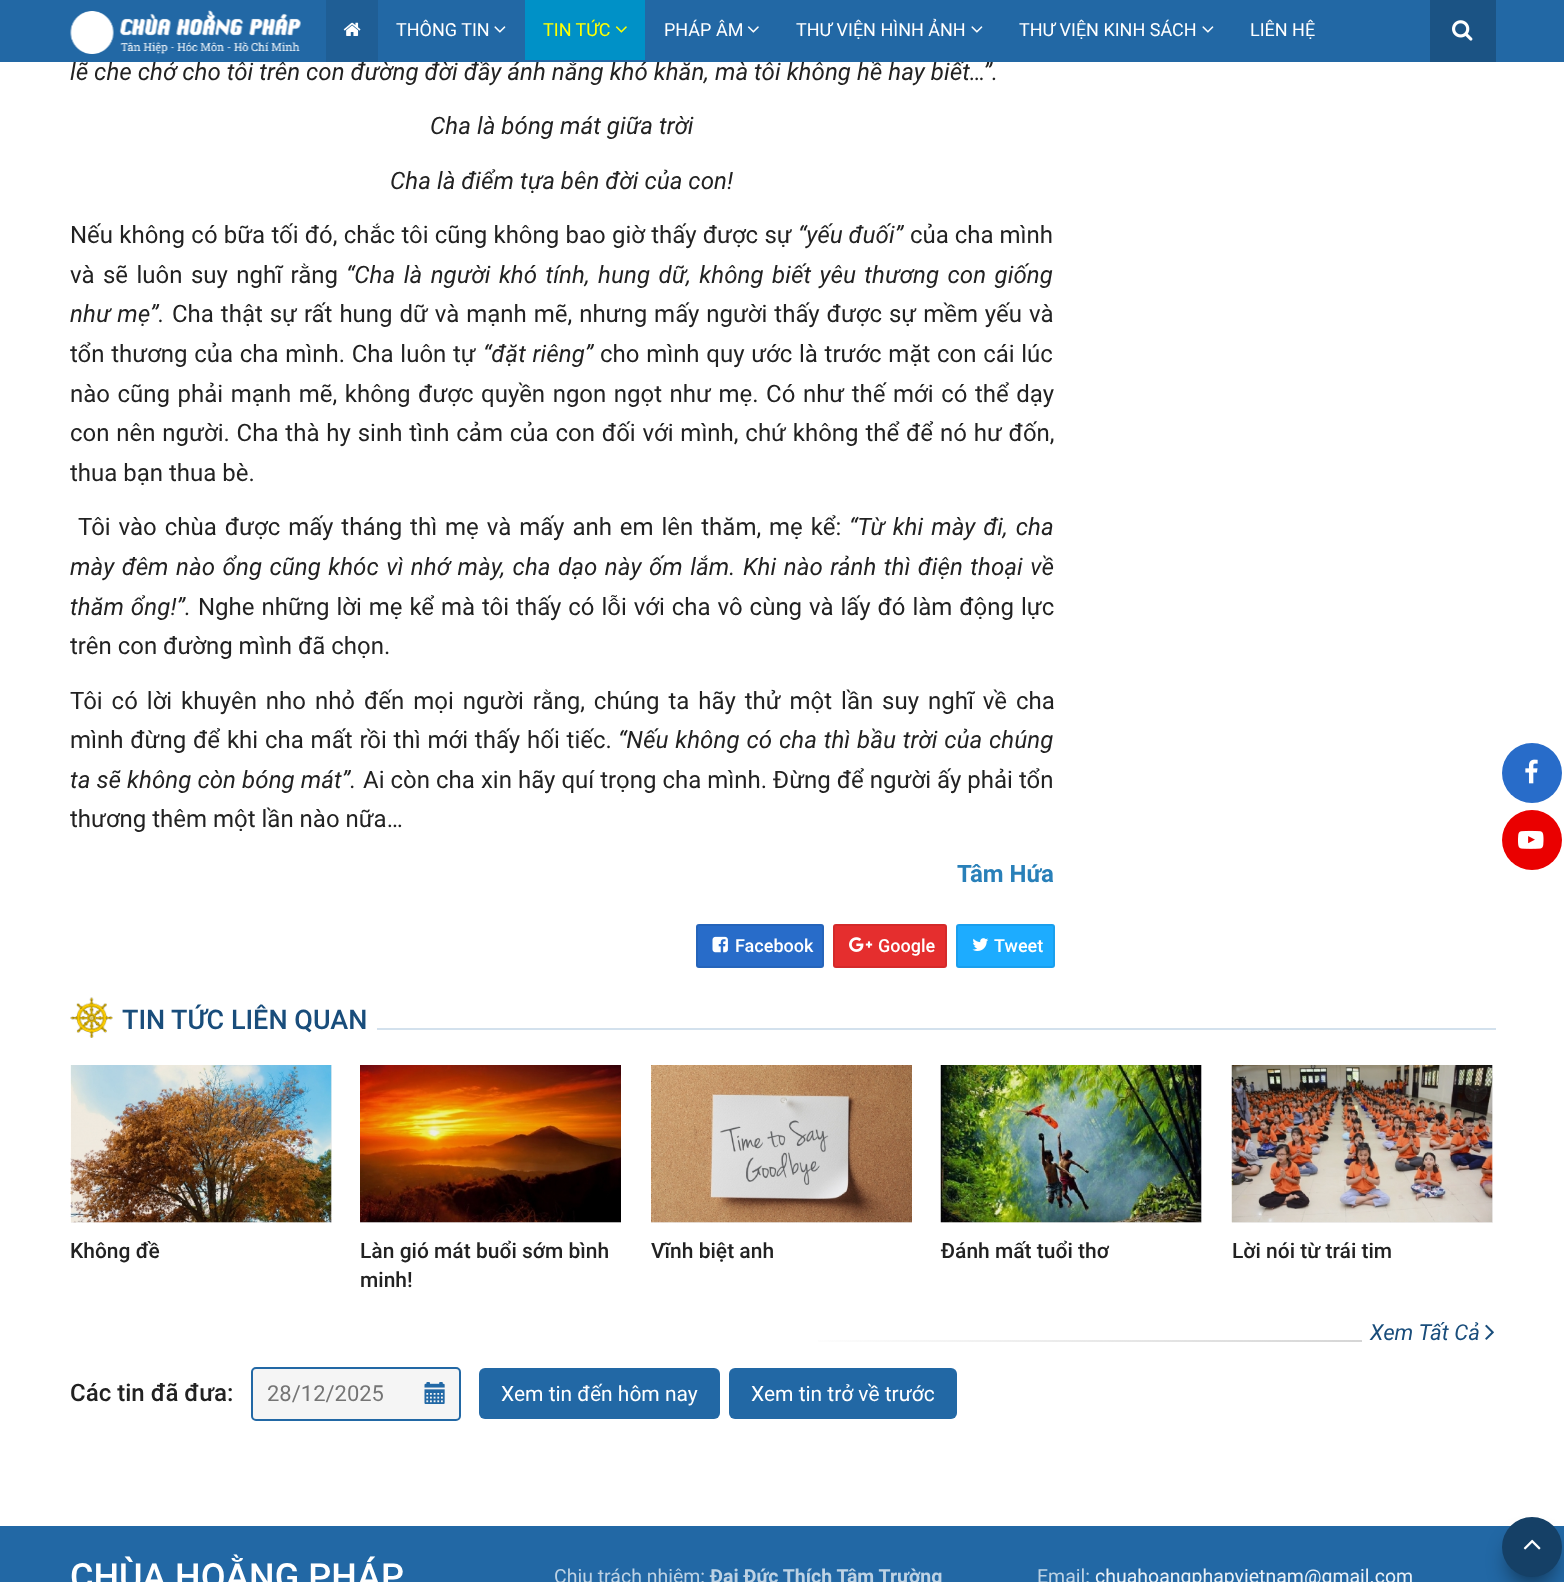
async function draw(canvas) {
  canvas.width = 1564;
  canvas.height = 1582;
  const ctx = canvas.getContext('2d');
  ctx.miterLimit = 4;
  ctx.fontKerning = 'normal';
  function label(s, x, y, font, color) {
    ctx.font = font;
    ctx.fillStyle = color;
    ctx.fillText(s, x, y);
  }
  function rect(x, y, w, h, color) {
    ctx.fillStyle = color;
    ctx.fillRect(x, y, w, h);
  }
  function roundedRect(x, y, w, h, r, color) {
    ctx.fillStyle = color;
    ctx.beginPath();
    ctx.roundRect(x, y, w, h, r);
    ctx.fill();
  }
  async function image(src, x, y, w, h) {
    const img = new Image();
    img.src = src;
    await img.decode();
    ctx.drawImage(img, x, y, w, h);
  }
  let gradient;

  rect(0, 0, 1564, 1582, '#fff');
  rect(1232, 1065, 261, 158, '#f0f0f0');
  rect(941, 1065, 261, 158, '#f0f0f0');
  rect(651, 1222, 261, 1, '#f0f0f0');
  rect(360, 1222, 261, 1, '#f0f0f0');
  rect(71, 1065, 261, 158, '#f0f0f0');
  label('lẽ che chở cho tôi trên con đường đời đầy ánh nắng khó khăn, mà tôi không hề hay biết…”.', 70, 80, 'italic 24px Roboto', '#222');
  rect(0, 0, 1564, 62, '#2268a5');
  await image('assets/img1.png', 70, 10, 231, 44);
  rect(326, 0, 52, 62, '#1f5e95');
  await image('assets/img2.png', 343, 22, 18, 14);
  label('THÔNG TIN', 396, 36, '18px Roboto', '#fff');
  await image('assets/img3.png', 494, 26, 12, 7);
  rect(525, 0, 120, 60, '#0091c7');
  label('TIN TỨC', 543, 36, '18px Roboto', '#ff0');
  await image('assets/img4.png', 615, 26, 12, 7);
  label('PHÁP ÂM', 664, 36, '18px Roboto', '#fff');
  await image('assets/img5.png', 747, 26, 12, 7);
  label('THƯ VIỆN HÌNH ẢNH', 796, 36, '18px Roboto', '#fff');
  await image('assets/img3.png', 971, 26, 12, 7);
  label('THƯ VIỆN KINH SÁCH', 1019, 36, '18px Roboto', '#fff');
  await image('assets/img3.png', 1202, 26, 12, 7);
  label('LIÊN HỆ', 1250, 36, '18px Roboto', '#fff');
  rect(1430, 0, 66, 62, '#1b5384');
  await image('assets/img6.png', 1452, 20, 21, 21);
  label('Cha là bóng mát giữa trời', 430, 134, 'italic 24px Roboto', '#222');
  label('Cha là điểm tựa bên đời của con!', 390, 189, 'italic 24px Roboto', '#222');
  ctx.wordSpacing = '0.3px';
  label('Nếu không có bữa tối đó, chắc tôi cũng không bao giờ thấy được sự', 70, 243, '24px Roboto', '#222');
  ctx.wordSpacing = '0px';
  label('“yếu đuối”', 798, 243, 'italic 24px Roboto', '#222');
  label('của cha mình', 910, 243, '24px Roboto', '#222');
  ctx.wordSpacing = '2.5px';
  label('và sẽ luôn suy nghĩ rằng', 70, 283, '24px Roboto', '#222');
  label('“Cha là người khó tính, hung dữ, không biết yêu thương con giống', 346, 283, 'italic 24px Roboto', '#222');
  ctx.wordSpacing = '1px';
  label('như mẹ”.', 70, 322, 'italic 24px Roboto', '#222');
  label('Cha thật sự rất hung dữ và mạnh mẽ, nhưng mấy người thấy được sự mềm yếu và', 172, 322, '24px Roboto', '#222');
  ctx.wordSpacing = '0.75px';
  label('tổn thương của cha mình. Cha luôn tự', 70, 362, '24px Roboto', '#222');
  label('“đặt riêng”', 483, 362, 'italic 24px Roboto', '#222');
  label('cho mình quy ước là trước mặt con cái lúc', 600, 362, '24px Roboto', '#222');
  ctx.wordSpacing = '1.6px';
  label('nào cũng phải mạnh mẽ, không được quyền ngon ngọt như mẹ. Có như thế mới có thể dạy', 70, 402, '24px Roboto', '#222');
  ctx.wordSpacing = '0.9px';
  label('con nên người. Cha thà hy sinh tình cảm của con đối với mình, chứ không thể để nó hư đốn,', 70, 441, '24px Roboto', '#222');
  ctx.wordSpacing = '0px';
  label('thua bạn thua bè.', 70, 481, '24px Roboto', '#222');
  ctx.wordSpacing = '2px';
  label('Tôi vào chùa được mấy tháng thì mẹ và mấy anh em lên thăm, mẹ kể:', 78, 535, '24px Roboto', '#222');
  label('“Từ khi mày đi, cha', 849, 535, 'italic 24px Roboto', '#222');
  ctx.wordSpacing = '1.5px';
  label('mày đêm nào ổng cũng khóc vì nhớ mày, cha dạo này ốm lắm. Khi nào rảnh thì điện thoại về', 70, 575, 'italic 24px Roboto', '#222');
  ctx.wordSpacing = '1px';
  label('thăm ổng!”.', 70, 615, 'italic 24px Roboto', '#222');
  label('Nghe những lời mẹ kể mà tôi thấy có lỗi với cha vô cùng và lấy đó làm động lực', 198, 615, '24px Roboto', '#222');
  ctx.wordSpacing = '0px';
  label('trên con đường mình đã chọn.', 70, 654, '24px Roboto', '#222');
  ctx.wordSpacing = '3px';
  label('Tôi có lời khuyên nho nhỏ đến mọi người rằng, chúng ta hãy thử một lần suy nghĩ về cha', 70, 709, '24px Roboto', '#222');
  ctx.wordSpacing = '0.9px';
  label('mình đừng để khi cha mất rồi thì mới thấy hối tiếc.', 70, 748, '24px Roboto', '#222');
  label('“Nếu không có cha thì bầu trời của chúng', 618, 748, 'italic 24px Roboto', '#222');
  ctx.wordSpacing = '0.1px';
  label('ta sẽ không còn bóng mát”.', 70, 788, 'italic 24px Roboto', '#222');
  label('Ai còn cha xin hãy quí trọng cha mình. Đừng để người ấy phải tổn', 363, 788, '24px Roboto', '#222');
  ctx.wordSpacing = '0px';
  label('thương thêm một lần nào nữa…', 70, 827, '24px Roboto', '#222');
  label('Tâm Hứa', 957, 882, 'bold 24px Roboto', '#2980b9');
  roundedRect(696, 924, 128, 44, 3, '#286cc9');
  ctx.beginPath();
  ctx.roundRect(697, 925, 126, 42, 2);
  ctx.strokeStyle = '#00000012';
  ctx.lineWidth = 2;
  ctx.stroke();
  await image('assets/img7.png', 712, 936, 16, 17);
  label('Facebook', 735, 952, '500 18px Roboto', '#fff');
  roundedRect(833, 924, 114, 44, 3, '#e52e2e');
  ctx.beginPath();
  ctx.roundRect(834, 925, 112, 42, 2);
  ctx.stroke();
  await image('assets/img8.png', 849, 937, 24, 15);
  label('Google', 878, 952, '500 18px Roboto', '#fff');
  roundedRect(956, 924, 99, 44, 3, '#1dacff');
  ctx.beginPath();
  ctx.roundRect(957, 925, 97, 42, 2);
  ctx.stroke();
  await image('assets/img9.png', 972, 938, 17, 13);
  label('Tweet', 994, 952, '500 18px Roboto', '#fff');
  await image('assets/img10.png', 70, 997, 43, 41);
  label('TIN TỨC LIÊN QUAN', 122, 1029, '500 27px Roboto', '#194d7b');
  rect(377, 1028, 1119, 2, '#d3e1ed');
  await image('assets/img11.png', 70, 1065, 262, 158);
  label('Không đề', 70, 1258, '500 21px Roboto', '#222');
  await image('assets/img12.png', 360, 1065, 261, 158);
  label('Làn gió mát buổi sớm bình', 360, 1258, '500 21px Roboto', '#222');
  label('minh!', 360, 1287, '500 21px Roboto', '#222');
  await image('assets/img13.png', 651, 1065, 261, 158);
  label('Vĩnh biệt anh', 651, 1258, '500 21px Roboto', '#222');
  await image('assets/img14.png', 940, 1065, 262, 158);
  label('Đánh mất tuổi thơ', 941, 1258, '500 21px Roboto', '#222');
  await image('assets/img15.png', 1231, 1065, 262, 158);
  label('Lời nói từ trái tim', 1232, 1258, '500 21px Roboto', '#222');
  gradient = ctx.createLinearGradient(1496, 1340, 783, 1340);
  gradient.addColorStop(0, '#ccc');
  gradient.addColorStop(1, '#fff');
  ctx.fillStyle = gradient;
  ctx.fillRect(818, 1340, 544, 2);
  label('Xem Tất Cả', 1370, 1340, 'italic 22px Roboto', '#194d7b');
  await image('assets/img16.png', 1485, 1324, 9, 16);
  label('Các tin đã đưa:', 70, 1401, '500 24px Roboto', '#222');
  ctx.fillStyle = '#f5f5f5';
  ctx.beginPath();
  ctx.roundRect(252, 1368, 208, 52, 4);
  ctx.fill();
  ctx.strokeStyle = '#2268a5';
  ctx.stroke();
  label('28/12/2025', 267, 1401, '22px Roboto', '#757575');
  await image('assets/img17.png', 424, 1382, 21, 22);
  roundedRect(479, 1368, 241, 51, 6, '#2268a5');
  label('Xem tin đến hôm nay', 501, 1401, '21px Roboto', '#fff');
  roundedRect(729, 1368, 228, 51, 6, '#2268a5');
  label('Xem tin trở về trước', 751, 1401, '21px Roboto', '#fff');
  ctx.fillStyle = '#286cc9';
  ctx.beginPath();
  ctx.arc(1532, 773, 30, 0, 2 * Math.PI);
  ctx.fill();
  await image('assets/img18.png', 1525, 759, 13, 25);
  ctx.fillStyle = '#ea0000';
  ctx.beginPath();
  ctx.arc(1532, 840, 30, 0, 2 * Math.PI);
  ctx.fill();
  await image('assets/img19.png', 1518, 830, 26, 19);
  rect(0, 1526, 1564, 56, '#2268a5');
  label('CHÙA HOẰNG PHÁP', 70, 1589, '500 36px Roboto', '#fff');
  label('Chịu trách nhiệm:', 554, 1583, '19.5px Roboto', '#bdd2e4');
  label('Đại Đức Thích Tâm Trường', 710, 1583, 'bold 19.5px Roboto', '#bdd2e4');
  label('Email:', 1037, 1583, '19.5px Roboto', '#bdd2e4');
  label('chuahoangphapvietnam@gmail.com', 1095, 1583, '19.5px Roboto', '#e9f0f6');
  ctx.fillStyle = '#00000080';
  ctx.filter = 'blur(11px)';
  ctx.beginPath();
  ctx.roundRect(1509, 1539, 45, 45, 22.5);
  ctx.fill();
  ctx.filter = 'none';
  ctx.fillStyle = '#154066';
  ctx.beginPath();
  ctx.arc(1532, 1547, 30, 0, 2 * Math.PI);
  ctx.fill();
  await image('assets/img20.png', 1523, 1539, 18, 11);
}

draw(document.querySelector('canvas'));
